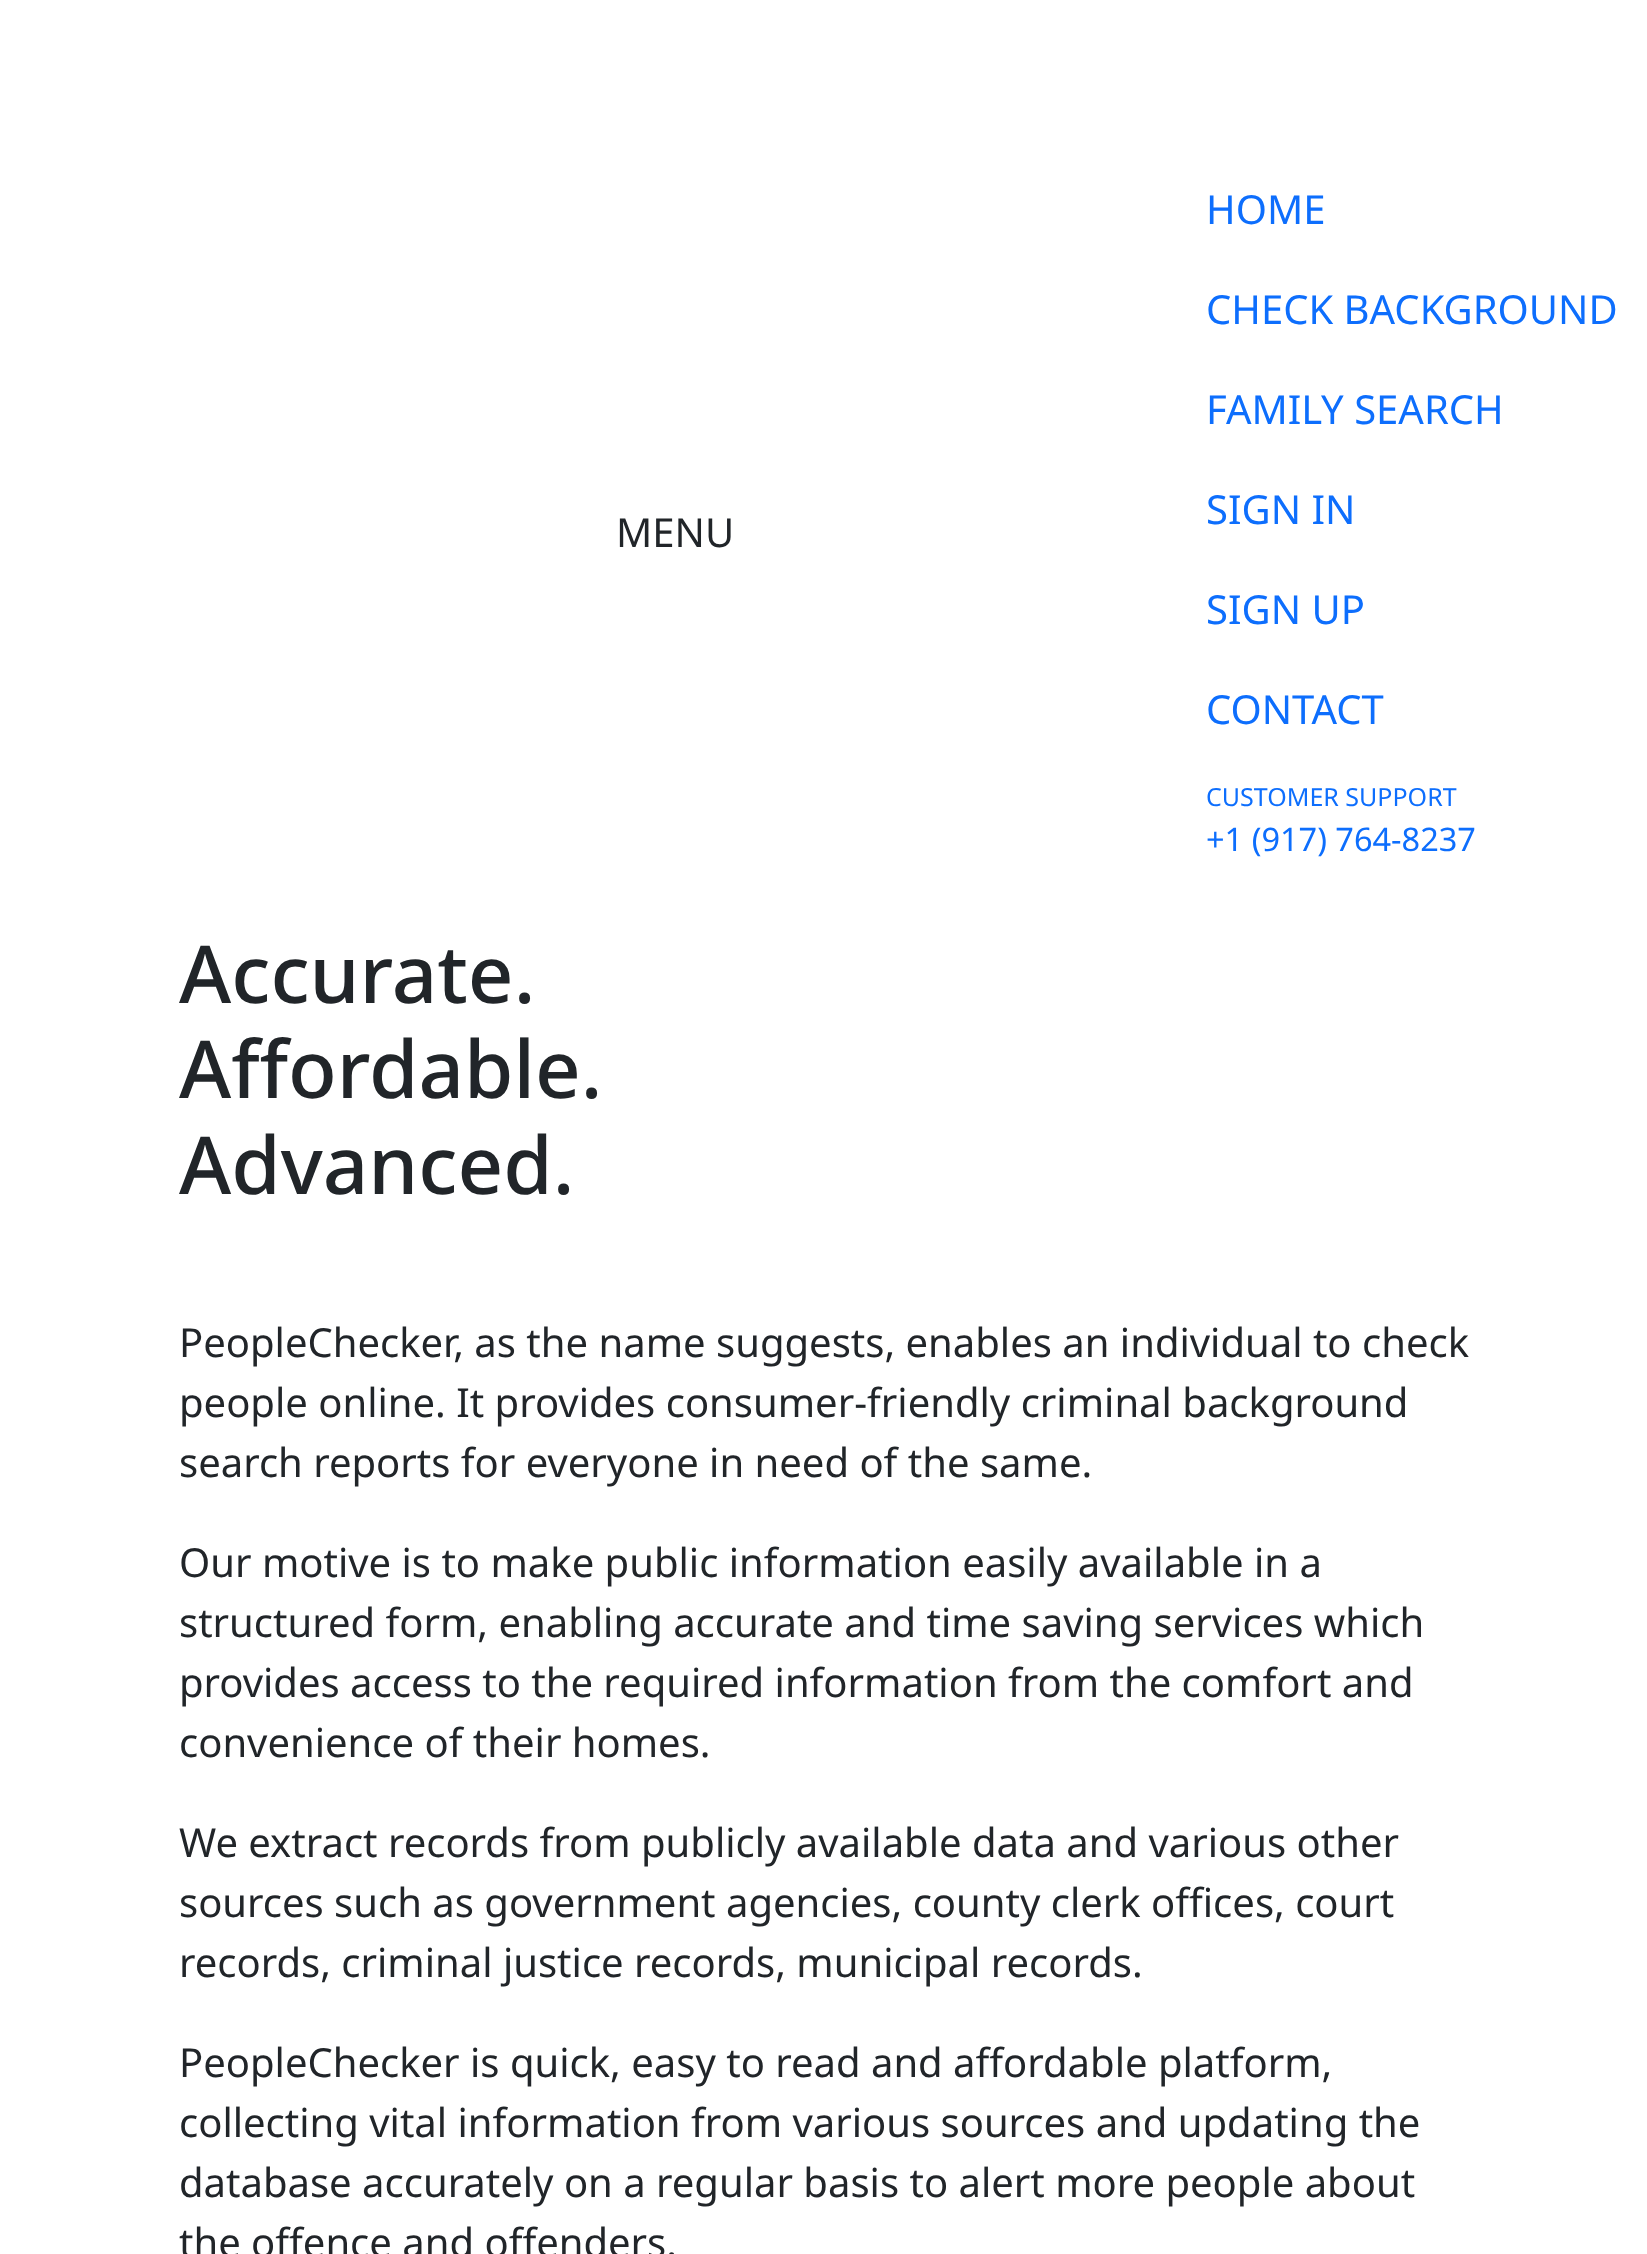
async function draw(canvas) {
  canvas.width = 1647;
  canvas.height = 2254;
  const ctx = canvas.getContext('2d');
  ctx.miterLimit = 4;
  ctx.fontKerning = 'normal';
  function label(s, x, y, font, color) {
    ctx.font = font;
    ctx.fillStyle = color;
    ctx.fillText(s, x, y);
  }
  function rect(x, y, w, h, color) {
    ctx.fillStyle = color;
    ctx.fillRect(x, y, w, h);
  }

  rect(0, 0, 1647, 2254, '#fff');
  label('MENU', 616, 547, '40px Noto Sans', '#212529');
  label('HOME', 1206, 224, '40px Noto Sans', '#0d6efd');
  label('CHECK BACKGROUND', 1206, 324, '40px Noto Sans', '#0d6efd');
  label('FAMILY SEARCH', 1206, 424, '40px Noto Sans', '#0d6efd');
  label('SIGN IN', 1206, 524, '40px Noto Sans', '#0d6efd');
  label('SIGN UP', 1206, 624, '40px Noto Sans', '#0d6efd');
  label('CONTACT', 1206, 724, '40px Noto Sans', '#0d6efd');
  label('CUSTOMER SUPPORT', 1206, 806, '25px Noto Sans', '#0d6efd');
  label('+1 (917) 764-8237', 1206, 851, '32.5px Noto Sans', '#0d6efd');
  label('Accurate.', 179, 1003, '500 79.75px Noto Sans', '#212529');
  label('Affordable.', 179, 1098, '500 79.75px Noto Sans', '#212529');
  label('Advanced.', 179, 1194, '500 79.75px Noto Sans', '#212529');
  label('PeopleChecker, as the name suggests, enables an individual to check', 179, 1357, '40px Noto Sans', '#212529');
  label('people online. It provides consumer-friendly criminal background', 179, 1417, '40px Noto Sans', '#212529');
  label('search reports for everyone in need of the same.', 179, 1477, '40px Noto Sans', '#212529');
  label('Our motive is to make public information easily available in a', 179, 1577, '40px Noto Sans', '#212529');
  label('structured form, enabling accurate and time saving services which', 179, 1637, '40px Noto Sans', '#212529');
  label('provides access to the required information from the comfort and', 179, 1697, '40px Noto Sans', '#212529');
  label('convenience of their homes.', 179, 1757, '40px Noto Sans', '#212529');
  label('We extract records from publicly available data and various other', 179, 1857, '40px Noto Sans', '#212529');
  label('sources such as government agencies, county clerk offices, court', 179, 1917, '40px Noto Sans', '#212529');
  label('records, criminal justice records, municipal records.', 179, 1977, '40px Noto Sans', '#212529');
  label('PeopleChecker is quick, easy to read and affordable platform,', 179, 2077, '40px Noto Sans', '#212529');
  label('collecting vital information from various sources and updating the', 179, 2137, '40px Noto Sans', '#212529');
  label('database accurately on a regular basis to alert more people about', 179, 2197, '40px Noto Sans', '#212529');
  label('the offence and offenders.', 179, 2257, '40px Noto Sans', '#212529');
}

draw(document.querySelector('canvas'));
